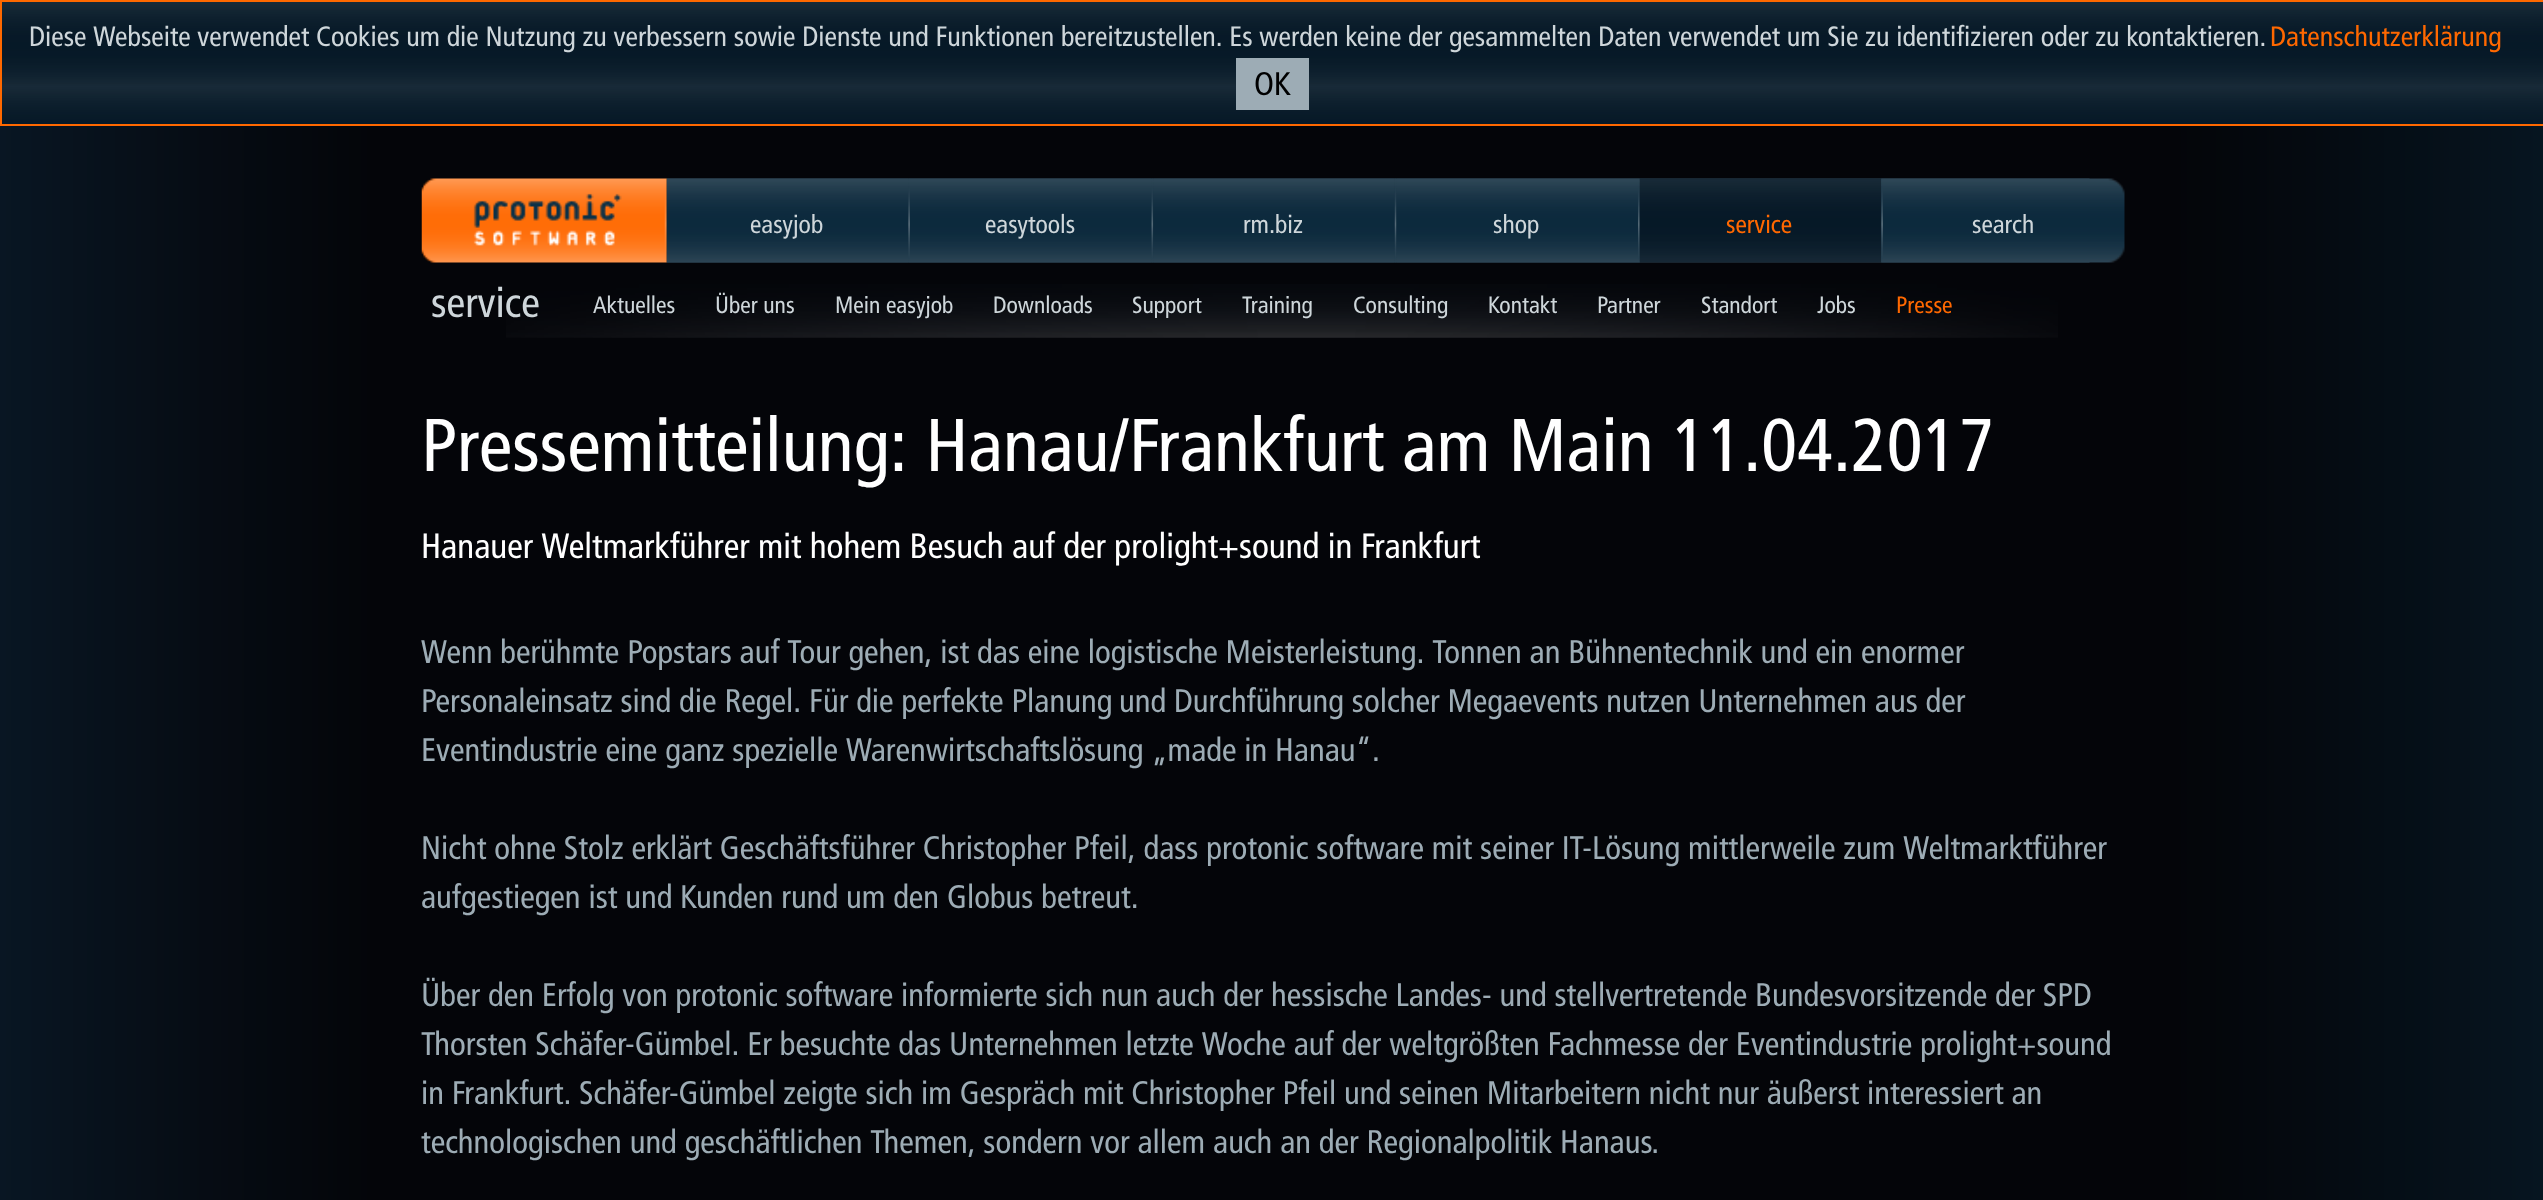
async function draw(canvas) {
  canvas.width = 2543;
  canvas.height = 1200;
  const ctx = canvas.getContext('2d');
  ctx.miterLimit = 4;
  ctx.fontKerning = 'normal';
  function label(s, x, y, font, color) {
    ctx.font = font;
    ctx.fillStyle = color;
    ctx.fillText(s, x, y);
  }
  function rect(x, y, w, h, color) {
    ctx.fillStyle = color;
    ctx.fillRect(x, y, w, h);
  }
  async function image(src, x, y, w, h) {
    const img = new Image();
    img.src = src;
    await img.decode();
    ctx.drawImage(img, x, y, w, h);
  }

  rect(0, 0, 2543, 1200, '#fff');
  await image('assets/img1.png', 0, 126, 2543, 1074);
  await image('assets/img2.png', 2, 2, 2541, 122);
  ctx.strokeStyle = '#ff6800';
  ctx.lineWidth = 2;
  ctx.strokeRect(1, 1, 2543, 124);
  label('Diese Webseite verwendet Cookies um die Nutzung zu verbessern sowie Dienste und Funktionen bereitzustellen. Es werden keine der gesammelten Daten verwendet um Sie zu identifizieren oder zu kontaktieren.', 29, 46, '28px "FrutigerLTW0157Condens"', '#ced6da');
  label('Datenschutzerklärung', 2270, 46, '28px "FrutigerLTW0157Condens"', '#ff6800');
  rect(1236, 58, 73, 52, '#9dacb5');
  label('OK', 1254, 95, '32.67px "FrutigerLTW0157Condens"', '#000');
  await image('assets/img4.png', 666, 178, 1424, 85);
  await image('assets/img3.png', 421, 178, 246, 85);
  await image('assets/img5.png', 666, 178, 243, 85);
  label('easyjob', 750, 233, '25.5px "FrutigerLTW0157Condens"', '#ced6da');
  await image('assets/img6.png', 908, 178, 2, 85);
  await image('assets/img7.png', 910, 178, 242, 85);
  label('easytools', 985, 233, '25.5px "FrutigerLTW0157Condens"', '#ced6da');
  await image('assets/img8.png', 1151, 178, 3, 85);
  await image('assets/img9.png', 1153, 178, 242, 85);
  label('rm.biz', 1243, 233, '25.5px "FrutigerLTW0157Condens"', '#ced6da');
  await image('assets/img10.png', 1394, 178, 3, 85);
  await image('assets/img11.png', 1396, 178, 242, 85);
  label('shop', 1493, 233, '25.5px "FrutigerLTW0157Condens"', '#ced6da');
  await image('assets/img12.png', 1638, 178, 2, 85);
  await image('assets/img13.png', 1639, 178, 243, 84);
  label('service', 1726, 233, '25.5px "FrutigerLTW0157Condens"', '#ff6800');
  await image('assets/img14.png', 1881, 178, 2, 85);
  await image('assets/img15.png', 1883, 178, 242, 85);
  label('search', 1972, 233, '25.5px "FrutigerLTW0157Condens"', '#ced6da');
  await image('assets/img16.png', 506, 284, 1552, 54);
  label('service', 431, 317, '42px "FrutigerLTW0157Condens"', '#ced6da');
  label('Aktuelles', 593, 313, '23.5px "FrutigerLTW0157Condens"', '#ced6da');
  label('Über uns', 715, 313, '23.5px "FrutigerLTW0157Condens"', '#ced6da');
  label('Mein easyjob', 835, 313, '23.5px "FrutigerLTW0157Condens"', '#ced6da');
  label('Downloads', 993, 313, '23.5px "FrutigerLTW0157Condens"', '#ced6da');
  label('Support', 1132, 313, '23.5px "FrutigerLTW0157Condens"', '#ced6da');
  label('Training', 1242, 313, '23.5px "FrutigerLTW0157Condens"', '#ced6da');
  label('Consulting', 1353, 313, '23.5px "FrutigerLTW0157Condens"', '#ced6da');
  label('Kontakt', 1488, 313, '23.5px "FrutigerLTW0157Condens"', '#ced6da');
  label('Partner', 1597, 313, '23.5px "FrutigerLTW0157Condens"', '#ced6da');
  label('Standort', 1701, 313, '23.5px "FrutigerLTW0157Condens"', '#ced6da');
  label('Jobs', 1817, 313, '23.5px "FrutigerLTW0157Condens"', '#ced6da');
  label('Presse', 1896, 313, '23.5px "FrutigerLTW0157Condens"', '#ff6800');
  label('Pressemitteilung: Hanau/Frankfurt am Main 11.04.2017', 421, 471, '74.7px "FrutigerLTW0157Condens"', '#fff');
  label('Hanauer Weltmarkführer mit hohem Besuch auf der prolight+sound in Frankfurt', 421, 558, '35px "FrutigerLTW0157Condens"', '#fff');
  label('Wenn berühmte Popstars auf Tour gehen, ist das eine logistische Meisterleistung. Tonnen an Bühnentechnik und ein enormer', 421, 663, '32.67px "FrutigerLTW0157Condens"', '#9dacb5');
  label('Personaleinsatz sind die Regel. Für die perfekte Planung', 421, 712, '32.67px "FrutigerLTW0157Condens"', '#9dacb5');
  label('und Durchführung solcher Megaevents nutzen Unternehmen aus der', 1119, 712, '32.67px "FrutigerLTW0157Condens"', '#9dacb5');
  label('Eventindustrie eine ganz spezielle Warenwirtschaftslösung „made in Hanau“.', 421, 761, '32.67px "FrutigerLTW0157Condens"', '#9dacb5');
  label('Nicht ohne Stolz erklärt Geschäftsführer Christopher Pfeil, dass protonic software mit seiner IT-Lösung mittlerweile zum Weltmarktführer', 421, 859, '32.67px "FrutigerLTW0157Condens"', '#9dacb5');
  label('aufgestiegen ist und Kunden rund um den Globus betreut.', 421, 908, '32.67px "FrutigerLTW0157Condens"', '#9dacb5');
  label('Über den Erfolg von protonic software informierte sich nun auch der hessische Landes- und stellvertretende Bundesvorsitzende der SPD', 421, 1006, '32.67px "FrutigerLTW0157Condens"', '#9dacb5');
  label('Thorsten Schäfer-Gümbel. Er besuchte das Unternehmen letzte Woche auf der weltgrößten Fachmesse der Eventindustrie prolight+sound', 421, 1055, '32.67px "FrutigerLTW0157Condens"', '#9dacb5');
  label('in Frankfurt. Schäfer-Gümbel zeigte sich im Gespräch mit Christopher Pfeil und seinen Mitarbeitern nicht nur äußerst interessiert an', 421, 1104, '32.67px "FrutigerLTW0157Condens"', '#9dacb5');
  label('technologischen und geschäftlichen Themen, sondern vor allem auch an der Regionalpolitik Hanaus.', 421, 1153, '32.67px "FrutigerLTW0157Condens"', '#9dacb5');
}

draw(document.querySelector('canvas'));
